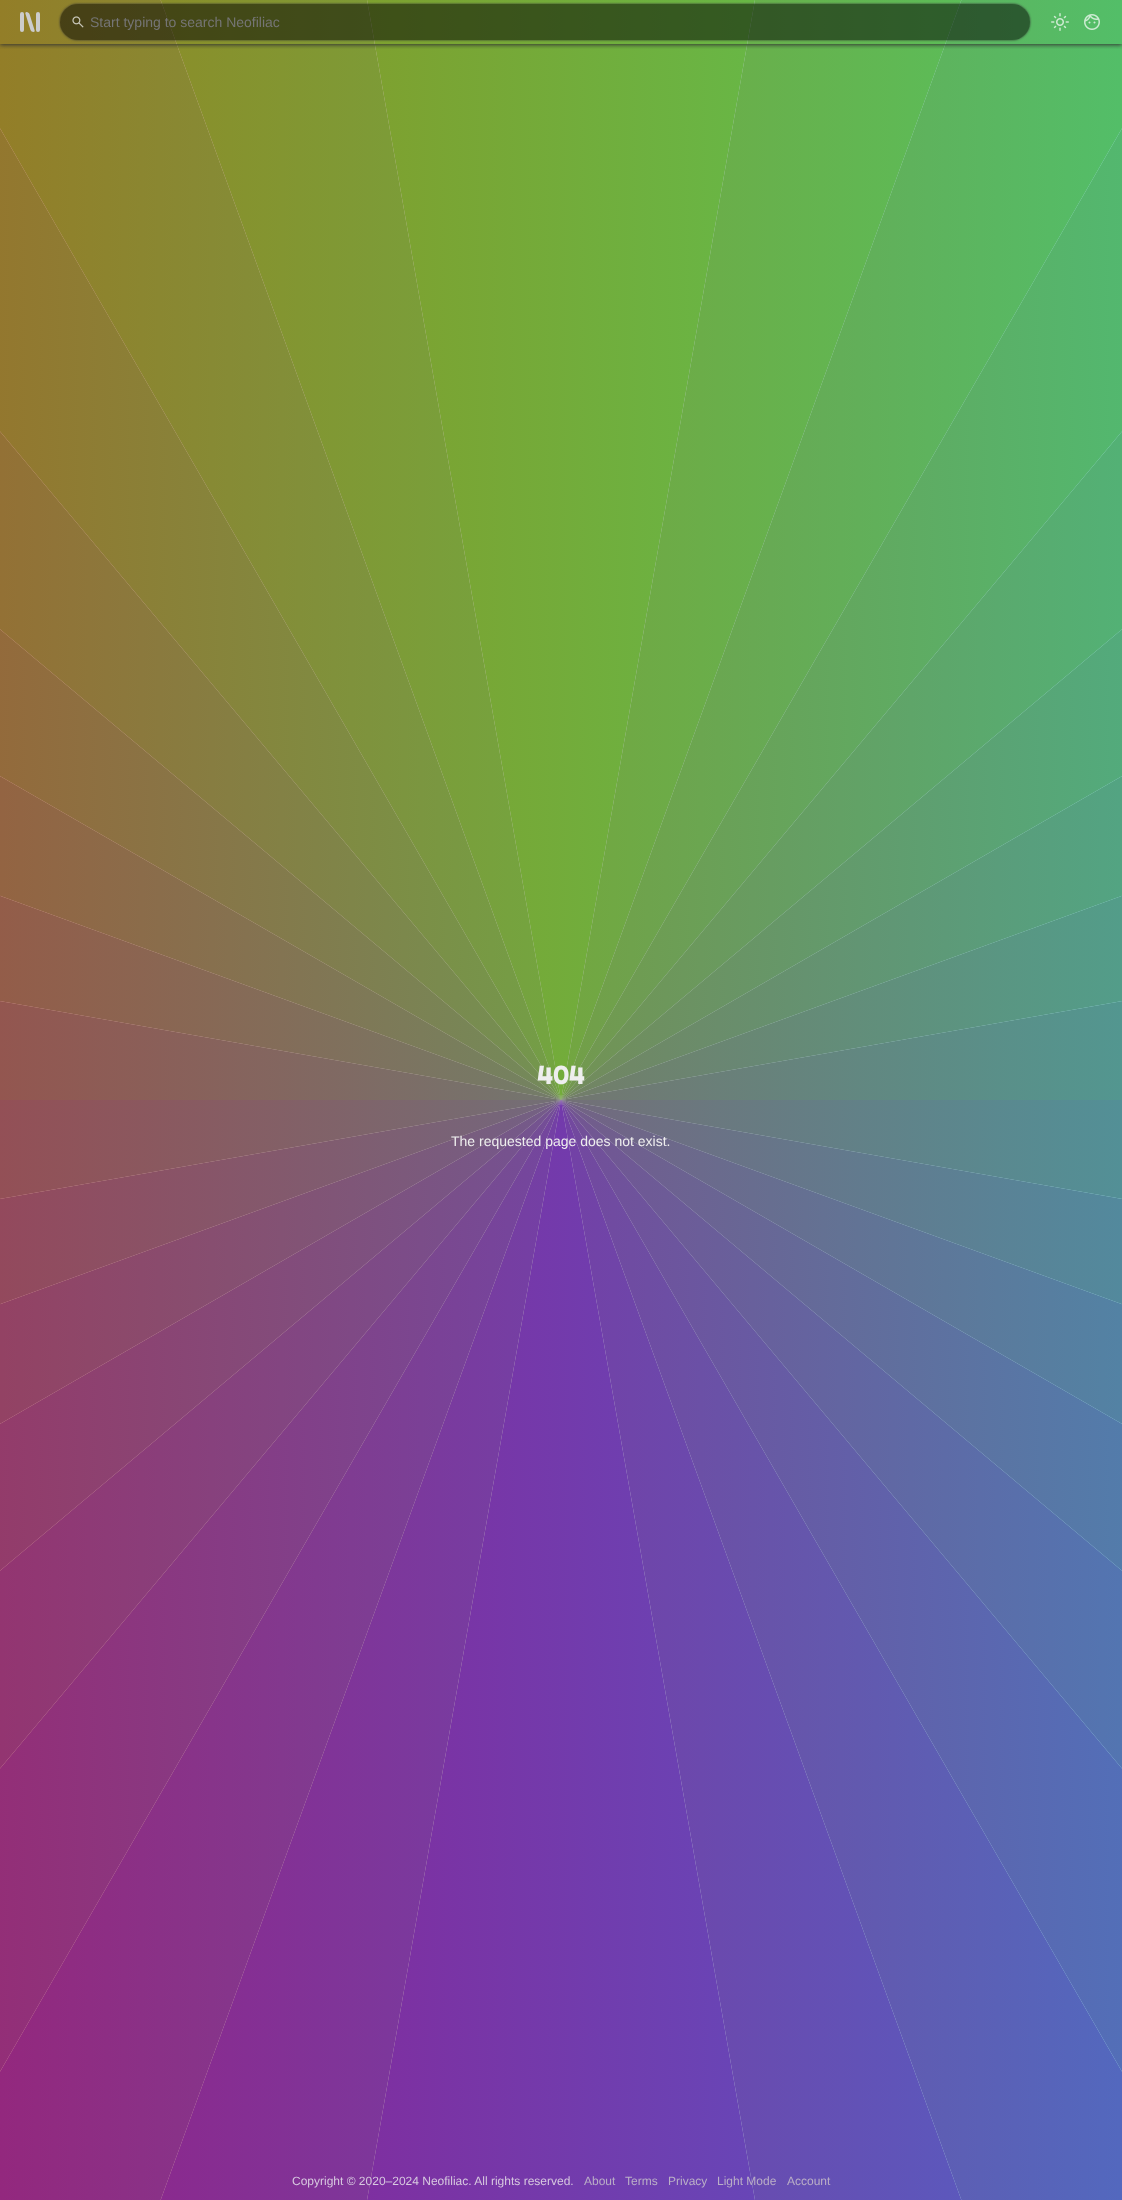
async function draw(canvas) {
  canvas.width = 1122;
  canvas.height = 2200;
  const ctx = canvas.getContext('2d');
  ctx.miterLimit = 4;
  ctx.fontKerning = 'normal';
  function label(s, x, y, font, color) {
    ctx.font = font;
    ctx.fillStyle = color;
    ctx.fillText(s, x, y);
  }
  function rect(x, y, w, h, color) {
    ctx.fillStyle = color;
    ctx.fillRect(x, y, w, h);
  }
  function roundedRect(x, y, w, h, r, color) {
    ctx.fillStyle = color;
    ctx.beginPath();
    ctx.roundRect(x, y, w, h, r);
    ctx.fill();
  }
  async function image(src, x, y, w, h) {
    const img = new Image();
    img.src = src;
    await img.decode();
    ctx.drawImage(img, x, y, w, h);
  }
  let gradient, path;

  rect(0, 0, 1122, 2200, '#fff');
  await image('assets/img1.png', 0, 0, 1122, 2200);
  gradient = ctx.createLinearGradient(0, 1100, 1122, 1100);
  gradient.addColorStop(0, '#cf171759');
  gradient.addColorStop(1, '#17cfcf59');
  ctx.fillStyle = gradient;
  ctx.fillRect(0, 0, 1122, 2200);
  ctx.save();
  ctx.beginPath();
  ctx.rect(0, 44, 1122, 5);
  ctx.clip();
  ctx.fillStyle = '#333';
  ctx.filter = 'blur(2px)';
  ctx.beginPath();
  ctx.rect(0, 1, 1122, 44);
  ctx.fill();
  ctx.filter = 'none';
  ctx.restore();
  roundedRect(20, 12, 4, 20, 2, '#ccc');
  path = new Path2D('M26.5 12C28 12 29 13 29.5 14L34.5 30C35 31 34.5 32 33.5 32C32 32 31 31 30.5 30L25.5 14C25 13 25.5 12 26.5 12Z');
  ctx.fill(path);
  roundedRect(36, 12, 4, 20, 2, '#ccc');
  ctx.save();
  path = new Path2D('M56 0H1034V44H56ZM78 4H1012C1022 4 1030 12 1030 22C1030 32 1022 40 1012 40H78C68 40 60 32 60 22C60 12 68 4 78 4Z');
  ctx.clip(path, 'evenodd');
  ctx.fillStyle = '#333';
  ctx.filter = 'blur(1px)';
  ctx.beginPath();
  ctx.roundRect(60, 4, 970, 36, 18);
  ctx.fill();
  ctx.filter = 'none';
  ctx.restore();
  roundedRect(60, 4, 970, 36, 18, '#00000080');
  await image('assets/img2.png', 72, 16, 12, 12);
  label('Start typing to search Neofiliac', 90, 27, '14px Liberation Sans', '#757575');
  await image('assets/img3.png', 1051, 13, 18, 18);
  await image('assets/img4.png', 1084, 14, 16, 16);
  label('404', 537, 1084, 'bold 25px Righteous', '#eee');
  label('The requested page does not exist.', 451, 1146, '14px Liberation Sans', '#eee');
  label('Copyright © 2020–2024 Neofiliac. All rights reserved.', 292, 2185, '12px Liberation Sans', '#d7c9df');
  label('About', 584, 2185, '12px Liberation Sans', '#baafc6');
  label('Terms', 625, 2185, '12px Liberation Sans', '#baafc6');
  label('Privacy', 668, 2185, '12px Liberation Sans', '#baafc6');
  label('Light Mode', 717, 2185, '12px Liberation Sans', '#baafc6');
  label('Account', 787, 2185, '12px Liberation Sans', '#baafc6');
}

draw(document.querySelector('canvas'));
